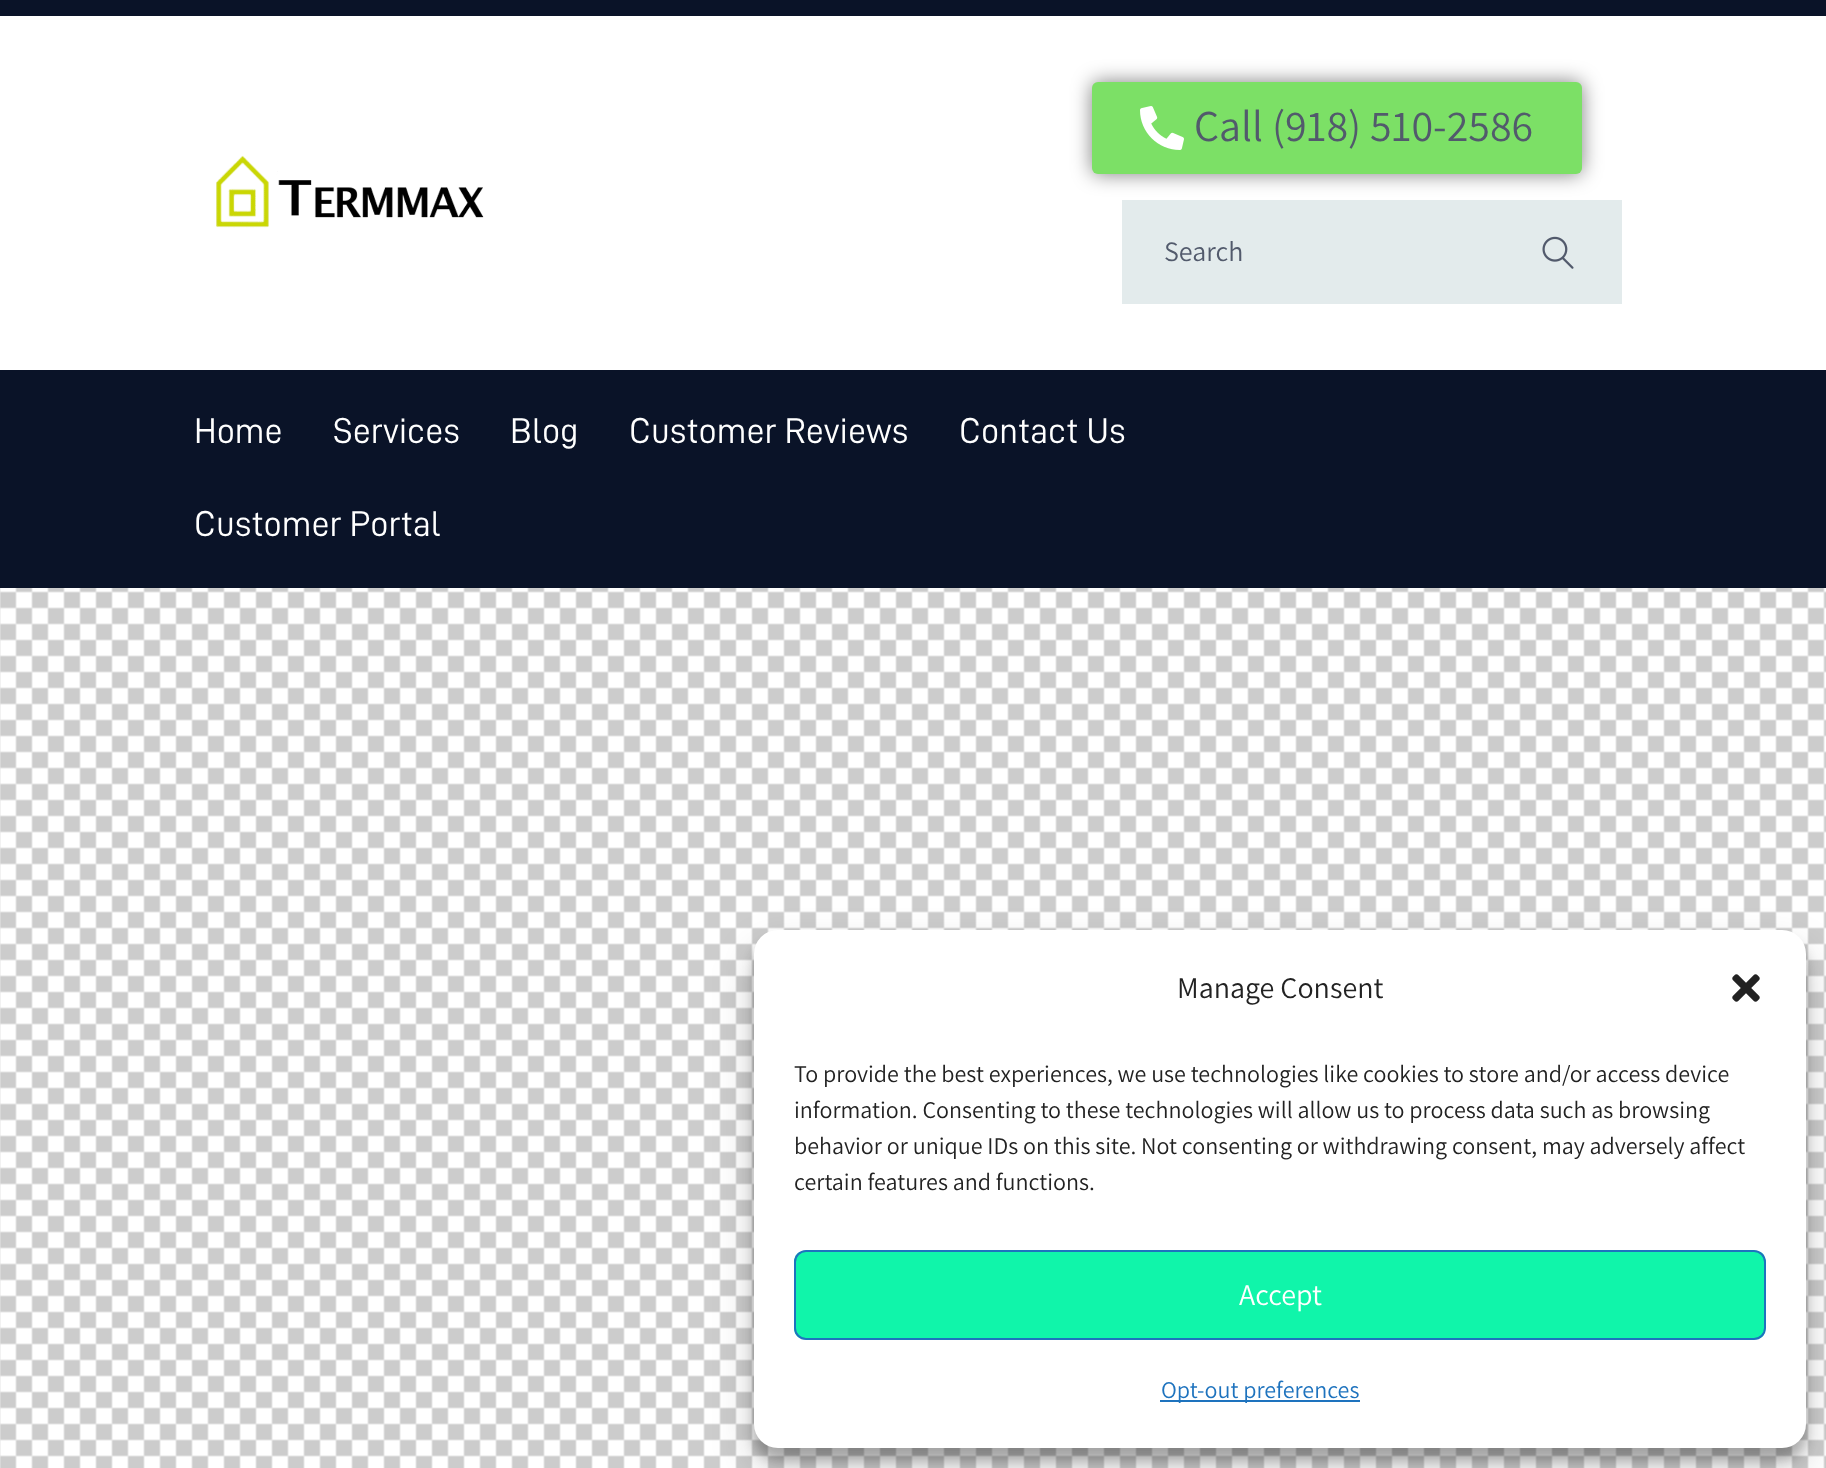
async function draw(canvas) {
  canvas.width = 1826;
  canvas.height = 1468;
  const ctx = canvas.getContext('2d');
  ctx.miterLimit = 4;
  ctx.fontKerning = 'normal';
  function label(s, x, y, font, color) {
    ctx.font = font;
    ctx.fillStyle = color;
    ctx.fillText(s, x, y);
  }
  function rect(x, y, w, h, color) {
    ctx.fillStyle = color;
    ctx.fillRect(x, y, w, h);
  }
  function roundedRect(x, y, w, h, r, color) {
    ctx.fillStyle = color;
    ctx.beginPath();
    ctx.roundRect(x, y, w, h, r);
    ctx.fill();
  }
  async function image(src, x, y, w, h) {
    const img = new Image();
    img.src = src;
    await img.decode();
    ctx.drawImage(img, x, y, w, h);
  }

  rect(0, 0, 1826, 1468, '#fff');
  await image('assets/img1.png', 0, 588, 1826, 880);
  rect(0, 0, 1826, 16, '#0a1328');
  await image('assets/img2.png', 216, 155, 268, 73);
  ctx.fillStyle = '#00000080';
  ctx.filter = 'blur(10px)';
  ctx.beginPath();
  ctx.roundRect(1092, 82, 490, 92, 6);
  ctx.fill();
  ctx.filter = 'none';
  roundedRect(1092, 82, 490, 92, 6, '#7ce066');
  await image('assets/img3.png', 1140, 106, 44, 44);
  label('Call (918) 510-2586', 1194, 141, '44px Assistant', '#525a6c');
  rect(1122, 200, 500, 104, '#e3ebec');
  label('Search', 1164, 261, '28px Assistant', '#525a6c');
  await image('assets/img4.png', 1542, 236, 32, 33);
  rect(0, 370, 1826, 218, '#0a1328');
  label('Home', 194, 443, '36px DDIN', '#fff');
  label('Services', 333, 443, '36px DDIN', '#fff');
  label('Blog', 510, 443, '36px DDIN', '#fff');
  label('Customer Reviews', 629, 443, '36px DDIN', '#fff');
  label('Contact Us', 959, 443, '36px DDIN', '#fff');
  label('Customer Portal', 194, 536, '36px DDIN', '#fff');
  ctx.fillStyle = '#0000003b';
  ctx.filter = 'blur(6px)';
  ctx.beginPath();
  ctx.roundRect(754, 942, 1052, 518, 24);
  ctx.fill();
  ctx.filter = 'none';
  ctx.fillStyle = '#00000030';
  ctx.filter = 'blur(20px)';
  ctx.beginPath();
  ctx.roundRect(754, 950, 1052, 518, 24);
  ctx.fill();
  ctx.filter = 'none';
  roundedRect(754, 930, 1052, 518, 24, '#fff');
  label('Manage Consent', 1177, 998, '30px Assistant', '#222');
  await image('assets/img5.png', 1732, 974, 28, 28);
  label('To provide the best experiences, we use technologies like cookies to store and/or access device', 794, 1082, '24px Assistant', '#222');
  label('information. Consenting to these technologies will allow us to process data such as browsing', 794, 1118, '24px Assistant', '#222');
  label('behavior or unique IDs on this site. Not consenting or withdrawing consent, may adversely affect', 794, 1154, '24px Assistant', '#222');
  label('certain features and functions.', 794, 1190, '24px Assistant', '#222');
  ctx.save();
  ctx.beginPath();
  ctx.roundRect(794, 1250, 972, 90, 12);
  ctx.clip();
  rect(794, 1252, 970, 86, '#10f5aa');
  ctx.restore();
  ctx.beginPath();
  ctx.roundRect(795, 1251, 970, 88, 11);
  ctx.strokeStyle = '#1e73be';
  ctx.lineWidth = 2;
  ctx.stroke();
  label('Accept', 1239, 1305, '30px Assistant', '#fff');
  rect(1160, 1400, 200, 2, '#1e73be');
  label('Opt-out preferences', 1161, 1398, '24px Assistant', '#1e73be');
}

draw(document.querySelector('canvas'));
